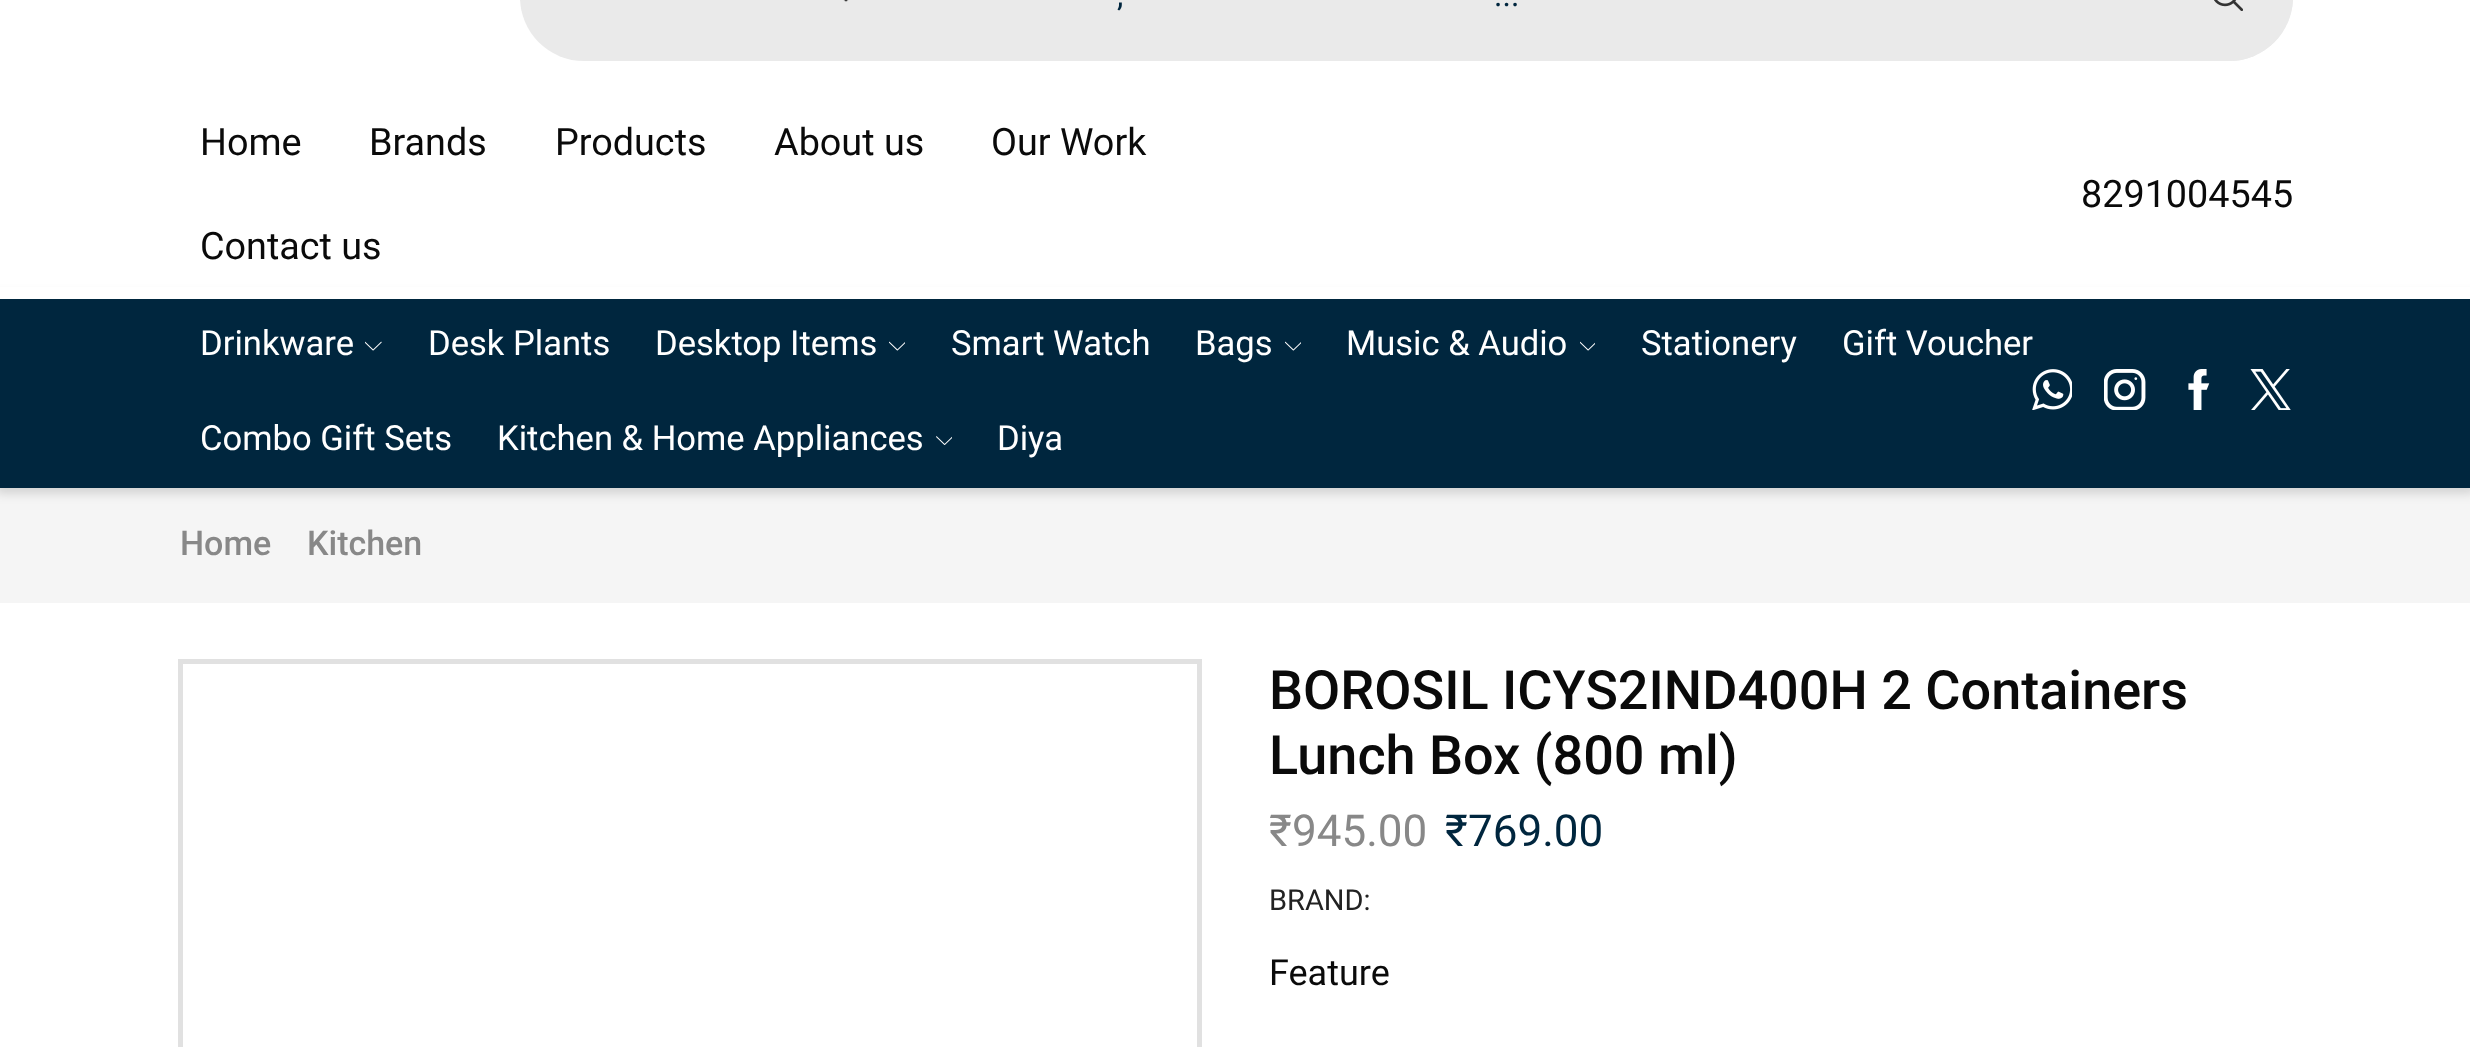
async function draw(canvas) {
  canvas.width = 2470;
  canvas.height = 1047;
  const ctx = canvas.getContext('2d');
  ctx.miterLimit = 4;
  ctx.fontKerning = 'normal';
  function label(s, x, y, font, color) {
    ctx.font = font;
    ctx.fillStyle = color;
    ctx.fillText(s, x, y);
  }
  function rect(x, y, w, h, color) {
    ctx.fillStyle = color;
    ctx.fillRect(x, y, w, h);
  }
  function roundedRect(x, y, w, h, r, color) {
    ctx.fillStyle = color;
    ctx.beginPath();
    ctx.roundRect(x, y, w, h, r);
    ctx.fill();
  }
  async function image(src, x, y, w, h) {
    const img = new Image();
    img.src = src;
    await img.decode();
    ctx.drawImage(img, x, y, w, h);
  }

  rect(0, 0, 2470, 1047, '#fff');
  roundedRect(520, -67, 1773, 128, 66.5, '#eaeaea');
  await image('assets/img1.png', 843, 0, 6, 2);
  roundedRect(2160, -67, 133, 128, 66.5, '#eaeaea');
  await image('assets/img2.png', 2214, 0, 29, 11);
  label(',', 1117, 6, '32px "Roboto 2"', '#00263e');
  label('...', 1494, 6, '32px "Roboto 2"', '#00263e');
  rect(0, 488, 2470, 115, '#f5f5f5');
  ctx.fillStyle = '#00000026';
  ctx.filter = 'blur(5.5px)';
  ctx.beginPath();
  ctx.rect(-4, 295, 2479, 198);
  ctx.fill();
  ctx.filter = 'none';
  rect(0, 287, 2470, 12, '#fff');
  label('Home', 200, 155, '37.75px "Roboto 2"', '#0a0a0a');
  label('Brands', 369, 155, '37.75px "Roboto 2"', '#0a0a0a');
  label('Products', 555, 155, '37.75px "Roboto 2"', '#0a0a0a');
  label('About us', 774, 155, '37.75px "Roboto 2"', '#0a0a0a');
  label('Our Work', 991, 155, '37.75px "Roboto 2"', '#0a0a0a');
  label('Contact us', 200, 259, '37.75px "Roboto 2"', '#0a0a0a');
  label('8291004545', 2081, 207, '37.75px "Roboto 2"', '#0a0a0a');
  rect(0, 299, 2470, 189, '#00263e');
  label('Drinkware', 200, 355, '34.6px "Roboto 2"', '#fff');
  await image('assets/img3.png', 365, 341, 17, 10);
  label('Desk Plants', 428, 355, '34.6px "Roboto 2"', '#fff');
  label('Desktop Items', 655, 355, '34.6px "Roboto 2"', '#fff');
  await image('assets/img4.png', 889, 341, 16, 10);
  label('Smart Watch', 951, 355, '34.6px "Roboto 2"', '#fff');
  label('Bags', 1195, 355, '34.6px "Roboto 2"', '#fff');
  await image('assets/img4.png', 1285, 341, 16, 10);
  label('Music & Audio', 1346, 355, '34.6px "Roboto 2"', '#fff');
  await image('assets/img5.png', 1580, 341, 15, 10);
  label('Stationery', 1641, 355, '34.6px "Roboto 2"', '#fff');
  label('Gift Voucher', 1842, 355, '34.6px "Roboto 2"', '#fff');
  label('Combo Gift Sets', 200, 450, '34.6px "Roboto 2"', '#fff');
  label('Kitchen & Home Appliances', 497, 450, '34.6px "Roboto 2"', '#fff');
  await image('assets/img6.png', 936, 436, 16, 9);
  label('Diya', 997, 450, '34.6px "Roboto 2"', '#fff');
  await image('assets/img7.png', 2032, 369, 40, 41);
  await image('assets/img8.png', 2104, 369, 42, 41);
  await image('assets/img9.png', 2188, 369, 22, 41);
  await image('assets/img10.png', 2250, 369, 41, 41);
  label('Home', 180, 555, '500 34px Roboto', '#888');
  label('Kitchen', 307, 555, '500 34px Roboto', '#888');
  ctx.strokeStyle = '#e1e1e1';
  ctx.lineWidth = 5;
  ctx.strokeRect(180.5, 661.5, 1019, 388);
  label('BOROSIL ICYS2IND400H 2 Containers', 1269, 709, '500 54px Roboto', '#0a0a0a');
  label('Lunch Box (800 ml)', 1269, 774, '500 54px Roboto', '#0a0a0a');
  label('₹', 1269, 846, '44px Roboto', '#888');
  label('945.00', 1292, 846, '44px "Roboto 2"', '#888');
  label('₹', 1445, 846, '44px Roboto', '#00263e');
  label('769.00', 1468, 846, '44px "Roboto 2"', '#00263e');
  label('BRAND:', 1269, 910, '29px "Roboto 2"', '#222');
  label('Feature', 1269, 985, '36px "Roboto 2"', '#0a0a0a');
}

draw(document.querySelector('canvas'));
